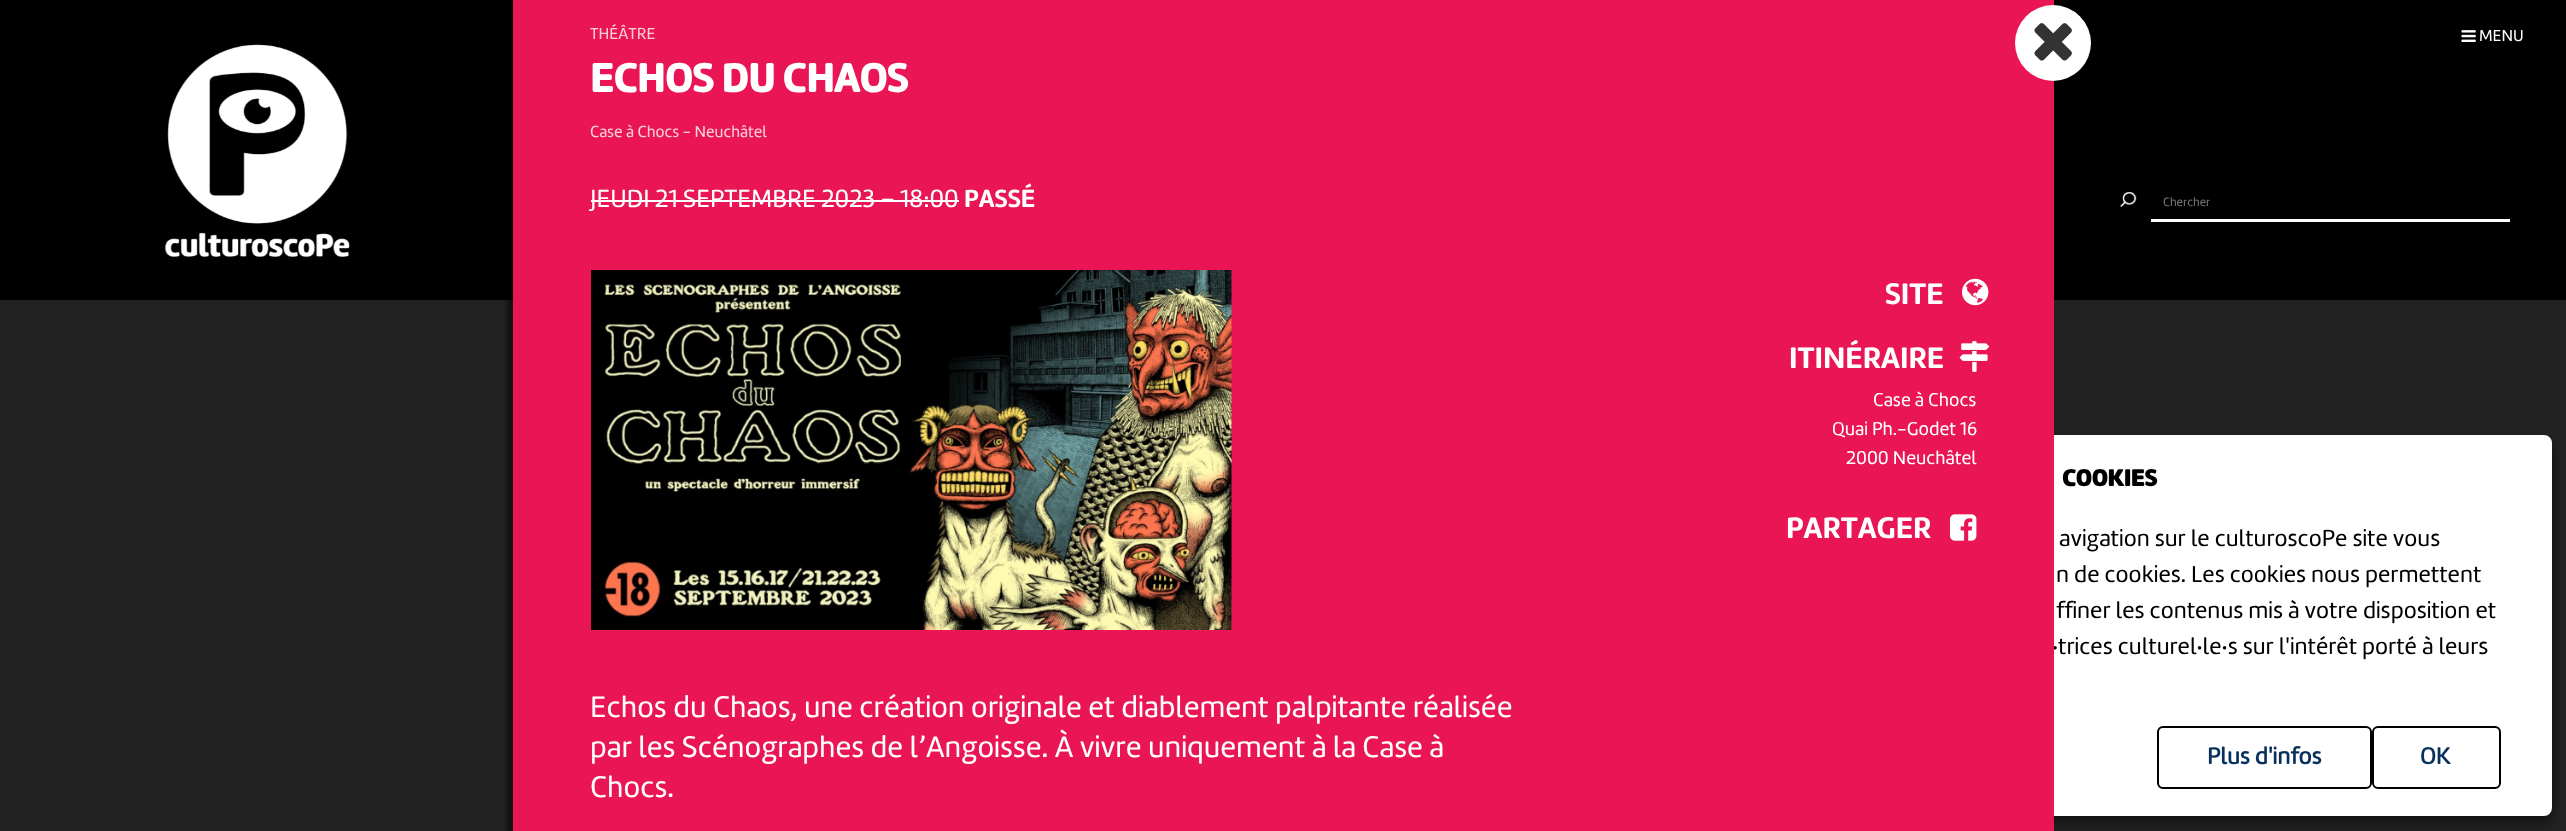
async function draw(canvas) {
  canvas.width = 2566;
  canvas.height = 831;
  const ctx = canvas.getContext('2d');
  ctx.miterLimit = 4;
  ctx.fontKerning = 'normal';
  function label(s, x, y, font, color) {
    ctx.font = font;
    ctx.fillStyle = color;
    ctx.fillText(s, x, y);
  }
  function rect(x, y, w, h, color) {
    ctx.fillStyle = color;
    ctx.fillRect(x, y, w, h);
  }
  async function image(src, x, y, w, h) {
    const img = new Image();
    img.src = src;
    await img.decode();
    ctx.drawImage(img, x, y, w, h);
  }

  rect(0, 0, 2566, 831, '#222');
  rect(0, 0, 2566, 300, '#000');
  await image('assets/img1.png', 164, 44, 186, 214);
  ctx.fillStyle = '#00000080';
  ctx.filter = 'blur(6px)';
  ctx.beginPath();
  ctx.roundRect(1782, 441, 770, 381, 8);
  ctx.fill();
  ctx.filter = 'none';
  ctx.fillStyle = '#fff';
  ctx.beginPath();
  ctx.roundRect(1783.5, 436.5, 767, 378, 6.5);
  ctx.fill();
  ctx.strokeStyle = '#fff';
  ctx.lineWidth = 3;
  ctx.stroke();
  ctx.fillStyle = '#00000080';
  ctx.filter = 'blur(2px)';
  ctx.beginPath();
  ctx.rect(507, 0, 1541, 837);
  ctx.fill();
  ctx.filter = 'none';
  label('·trices culturel·le·s sur l\'intérêt porté à leurs', 2052, 654, '24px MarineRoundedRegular', '#000');
  rect(513, 0, 1541, 831, '#e91555');
  label('THÉÂTRE', 590, 39, '16.6px MarineRoundedRegular', '#fbd0dd');
  label('ECHOS DU CHAOS', 590, 92, 'bold 41.5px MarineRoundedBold', '#fff');
  label('Case à Chocs - Neuchâtel', 590, 137, '16.6px MarineRoundedRegular', '#fbd0dd');
  label('JEUDI 21 SEPTEMBRE 2023 – 18:00', 590, 207, '25.7px MarineRoundedRegular', '#fff');
  rect(591, 200, 368, 2, '#fff');
  label('PASSÉ', 964, 207, '25.7px MarineRoundedBold', '#fff');
  await image('assets/img2.png', 591, 270, 641, 360);
  label('SITE', 1885, 304, '30.8px MarineRoundedBold', '#fff');
  await image('assets/img3.png', 1962, 278, 27, 28);
  label('ITINÉRAIRE', 1789, 368, '30.8px MarineRoundedBold', '#fff');
  await image('assets/img4.png', 1959, 341, 31, 31);
  label('Case à Chocs', 1873, 406, '19.25px MarineRoundedRegular', '#fff');
  label('Quai Ph.-Godet 16', 1832, 435, '19.25px MarineRoundedRegular', '#fff');
  label('2000 Neuchâtel', 1846, 464, '19.25px MarineRoundedRegular', '#fff');
  label('PARTAGER', 1786, 538, '30.8px MarineRoundedBold', '#fff');
  await image('assets/img5.png', 1950, 514, 27, 27);
  label('Echos du Chaos, une création originale et diablement palpitante réalisée', 590, 717, '30.8px MarineRoundedRegular', '#fff');
  label('par les Scénographes de l’Angoisse. À vivre uniquement à la Case à', 590, 757, '30.8px MarineRoundedRegular', '#fff');
  label('Chocs.', 590, 797, '30.8px MarineRoundedRegular', '#fff');
  ctx.beginPath();
  ctx.arc(2053, 43, 38, 0, 2 * Math.PI);
  ctx.fill();
  await image('assets/img6.png', 2034, 23, 38, 38);
  await image('assets/img7.png', 2120, 192, 17, 16);
  rect(2151, 219, 359, 3, '#fff');
  label('Chercher', 2163, 206, '12.5px MarineRoundedRegular', '#757575');
  await image('assets/img8.png', 2461, 30, 15, 12);
  label('MENU', 2479, 41, '16.6px MarineRoundedRegular', '#fff');
  label('COOKIES', 2062, 486, 'bold 24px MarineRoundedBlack', '#000');
  label('avigation sur le culturoscoPe site vous', 2059, 546, '24px MarineRoundedRegular', '#000');
  label('n de cookies. Les cookies nous permettent', 2056, 582, '24px MarineRoundedRegular', '#000');
  label('ffiner les contenus mis à votre disposition et', 2056, 618, '24px MarineRoundedRegular', '#000');
  ctx.beginPath();
  ctx.roundRect(2158, 727, 213, 61, 5);
  ctx.strokeStyle = '#000';
  ctx.lineWidth = 2;
  ctx.stroke();
  label('Plus d\'infos', 2207, 764, 'bold 24px MarineRoundedRegular', '#07305c');
  ctx.beginPath();
  ctx.roundRect(2373, 727, 127, 61, 5);
  ctx.stroke();
  label('OK', 2420, 764, 'bold 24px MarineRoundedRegular', '#07305c');
}

draw(document.querySelector('canvas'));
